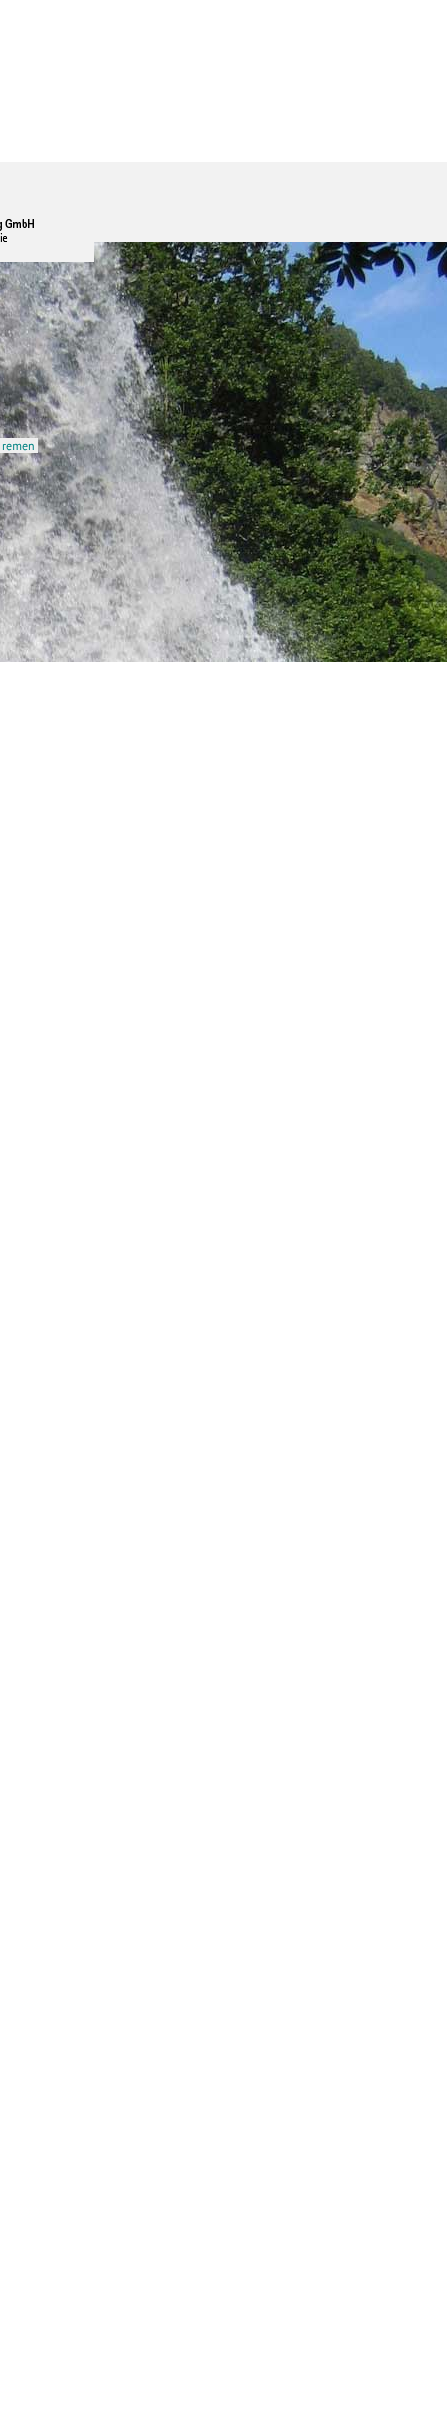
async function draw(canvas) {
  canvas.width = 447;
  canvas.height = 2431;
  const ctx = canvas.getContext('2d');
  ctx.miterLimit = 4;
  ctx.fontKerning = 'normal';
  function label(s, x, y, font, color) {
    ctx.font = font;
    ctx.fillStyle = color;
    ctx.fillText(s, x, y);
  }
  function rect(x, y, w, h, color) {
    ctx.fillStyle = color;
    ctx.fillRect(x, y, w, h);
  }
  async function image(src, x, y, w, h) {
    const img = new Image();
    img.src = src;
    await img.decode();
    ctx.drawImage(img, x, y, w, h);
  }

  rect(0, 0, 447, 2431, '#fff');
  rect(0, 162, 447, 80, '#f2f2f2');
  await image('assets/img1.png', 0, 219, 34, 23);
  await image('assets/img2.png', 0, 242, 447, 420);
  rect(0, 242, 94, 20, '#f2f2f2');
  rect(0, 438, 38, 15, '#efefef');
  label('remen', 2, 450, '12px PT Sans', '#008282');
}

draw(document.querySelector('canvas'));
